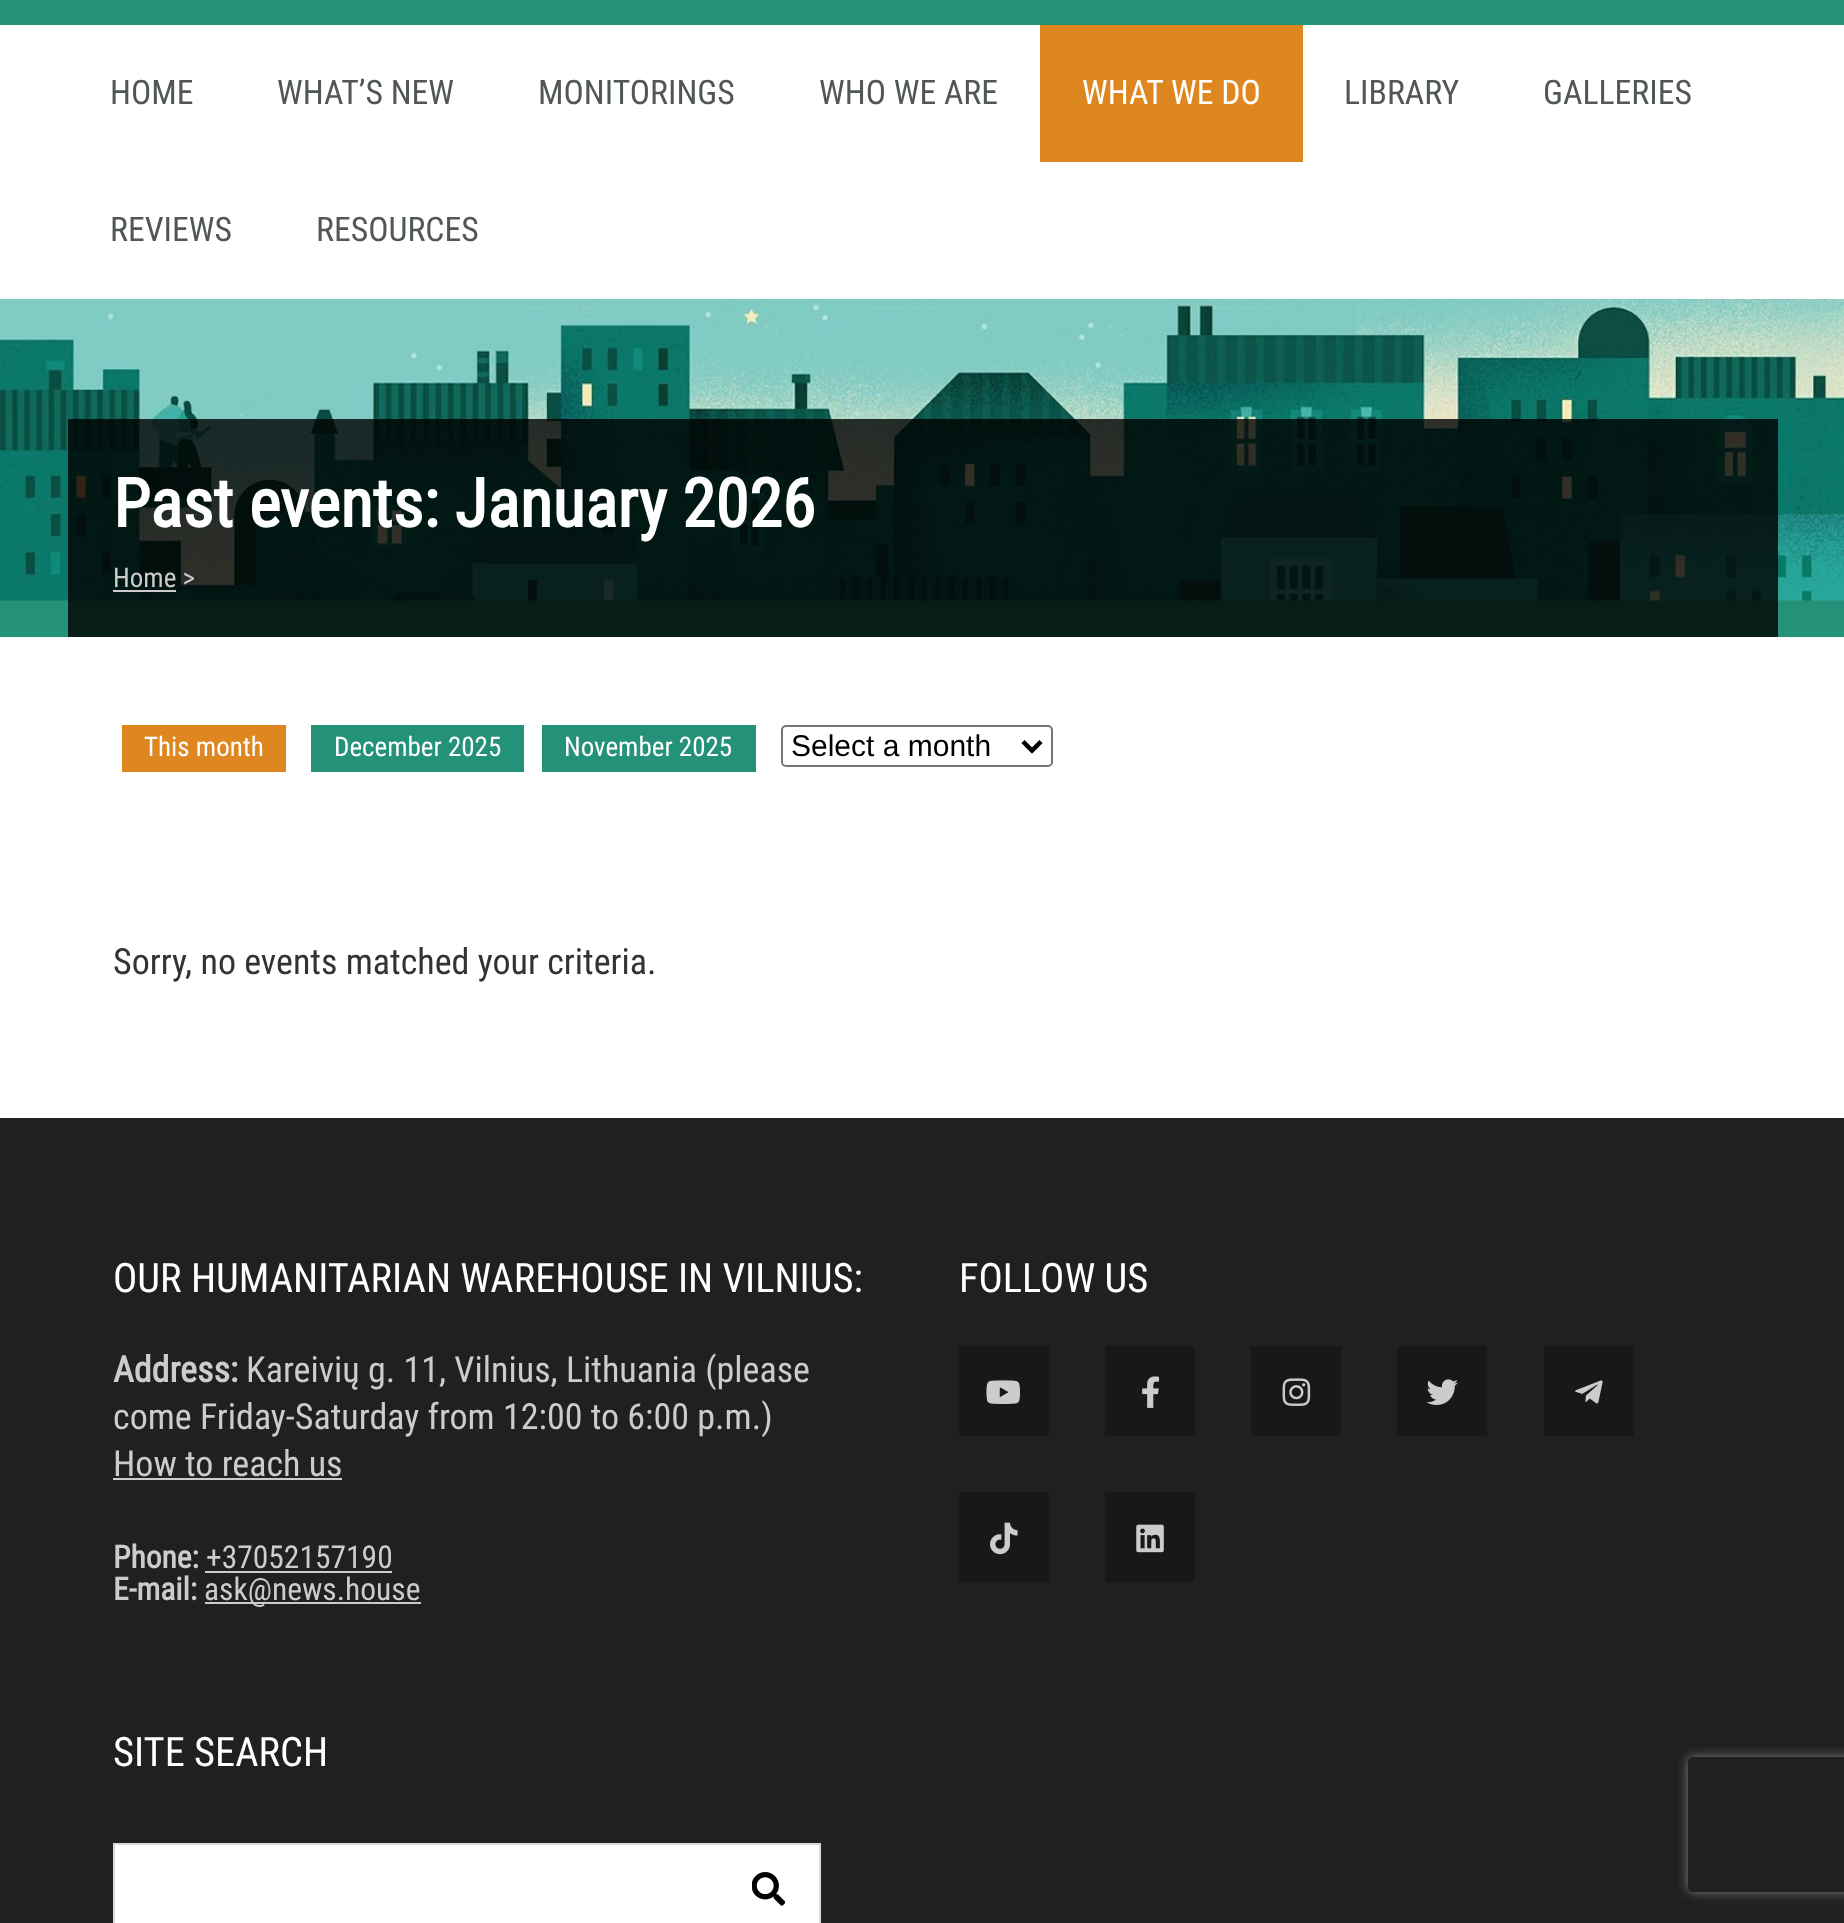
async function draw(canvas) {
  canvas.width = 1844;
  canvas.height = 1923;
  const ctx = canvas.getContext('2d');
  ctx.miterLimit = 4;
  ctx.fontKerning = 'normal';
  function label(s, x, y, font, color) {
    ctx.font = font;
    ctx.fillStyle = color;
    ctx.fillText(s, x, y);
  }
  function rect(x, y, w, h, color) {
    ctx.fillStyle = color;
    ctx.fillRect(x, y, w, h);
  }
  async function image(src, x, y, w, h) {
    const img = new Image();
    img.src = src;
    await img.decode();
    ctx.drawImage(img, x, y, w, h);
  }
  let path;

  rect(0, 0, 1844, 1923, '#fff');
  rect(0, 0, 1844, 637, '#249278');
  rect(0, 25, 1844, 274, '#fff');
  label('HOME', 110, 104, '33.75px Roboto Condensed', '#515659');
  label('WHAT’S NEW', 277, 104, '33.75px Roboto Condensed', '#515659');
  label('MONITORINGS', 538, 104, '33.75px Roboto Condensed', '#515659');
  label('WHO WE ARE', 819, 104, '33.75px Roboto Condensed', '#515659');
  rect(1040, 25, 263, 137, '#de8721');
  label('WHAT WE DO', 1082, 104, '33.75px Roboto Condensed', '#fff');
  label('LIBRARY', 1344, 104, '33.75px Roboto Condensed', '#515659');
  label('GALLERIES', 1543, 104, '33.75px Roboto Condensed', '#515659');
  label('REVIEWS', 110, 241, '33.75px Roboto Condensed', '#515659');
  label('RESOURCES', 316, 241, '33.75px Roboto Condensed', '#515659');
  await image('assets/img1.png', 0, 299, 1844, 302);
  rect(68, 419, 1710, 218, '#000000cc');
  label('Past events: January 2026', 113, 527, 'bold 67.5px Roboto Condensed', '#fff');
  label('Home >', 113, 587, '27px Roboto Condensed', '#ccc');
  rect(113, 590, 63, 2, '#ccc');
  rect(122, 725, 164, 47, '#de8721');
  label('This month', 144, 756, '27px Roboto Condensed', '#fff');
  rect(311, 725, 213, 47, '#249278');
  label('December 2025', 334, 756, '27px Roboto Condensed', '#fff');
  rect(542, 725, 214, 47, '#249278');
  label('November 2025', 564, 756, '27px Roboto Condensed', '#fff');
  ctx.beginPath();
  ctx.roundRect(782, 726, 270, 40, 4);
  ctx.strokeStyle = '#767676';
  ctx.lineWidth = 2;
  ctx.stroke();
  path = new Path2D('M1023 741.5L1032 750.5L1041 741.5');
  ctx.strokeStyle = '#000';
  ctx.lineWidth = 4.5;
  ctx.stroke(path);
  label('Select a month', 791, 756, '30px Liberation Sans', '#000');
  label('Sorry, no events matched your criteria.', 113, 974, '36px Roboto Condensed', '#333');
  rect(0, 1118, 1844, 805, '#202020');
  label('OUR HUMANITARIAN WAREHOUSE IN VILNIUS:', 113, 1292, '40.5px Roboto Condensed', '#fff');
  label('Address:', 113, 1382, 'bold 36px Roboto Condensed', '#ccc');
  label('Kareivių g. 11, Vilnius, Lithuania (please', 246, 1382, '36px Roboto Condensed', '#ccc');
  label('come Friday-Saturday from 12:00 to 6:00 p.m.)', 113, 1429, '36px Roboto Condensed', '#ccc');
  label('How to reach us', 113, 1476, '36px Roboto Condensed', '#ccc');
  rect(113, 1478, 229, 2, '#ccc');
  label('Phone:', 113, 1568, 'bold 31.5px Roboto Condensed', '#ccc');
  label('+37052157190', 206, 1568, '31.5px Roboto Condensed', '#ccc');
  rect(205, 1571, 187, 2, '#ccc');
  label('E-mail:', 113, 1600, 'bold 31.5px Roboto Condensed', '#ccc');
  rect(205, 1602, 216, 2, '#ccc');
  label('ask@news.house', 204, 1600, '31.5px Roboto Condensed', '#ccc');
  label('FOLLOW US', 959, 1292, '40.5px Roboto Condensed', '#fff');
  rect(959, 1346, 90, 90, '#181818');
  await image('assets/img2.png', 986, 1380, 34, 24);
  rect(1105, 1346, 90, 90, '#181818');
  await image('assets/img3.png', 1142, 1376, 18, 32);
  rect(1251, 1346, 90, 90, '#181818');
  await image('assets/img4.png', 1282, 1378, 29, 28);
  rect(1397, 1346, 90, 90, '#181818');
  await image('assets/img5.png', 1426, 1379, 32, 26);
  rect(1544, 1346, 90, 90, '#181818');
  await image('assets/img6.png', 1575, 1380, 28, 24);
  rect(959, 1492, 90, 90, '#181818');
  await image('assets/img7.png', 990, 1522, 28, 33);
  rect(1105, 1492, 90, 90, '#181818');
  await image('assets/img8.png', 1136, 1524, 28, 29);
  label('SITE SEARCH', 113, 1766, '40.5px Roboto Condensed', '#fff');
  rect(115, 1845, 704, 78, '#fff');
  await image('assets/img9.png', 752, 1872, 33, 34);
  ctx.strokeStyle = '#d9d9d9';
  ctx.lineWidth = 2;
  ctx.strokeRect(114, 1844, 706, 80);
  ctx.save();
  path = new Path2D('M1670 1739H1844V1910H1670ZM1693 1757H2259C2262 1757 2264 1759 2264 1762V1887C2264 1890 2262 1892 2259 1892H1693C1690 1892 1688 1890 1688 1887V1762C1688 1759 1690 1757 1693 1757Z');
  ctx.clip(path, 'evenodd');
  ctx.fillStyle = '#808080';
  ctx.filter = 'blur(5.5px)';
  ctx.beginPath();
  ctx.roundRect(1688, 1757, 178, 135, 5);
  ctx.fill();
  ctx.filter = 'none';
  ctx.restore();
}

draw(document.querySelector('canvas'));
